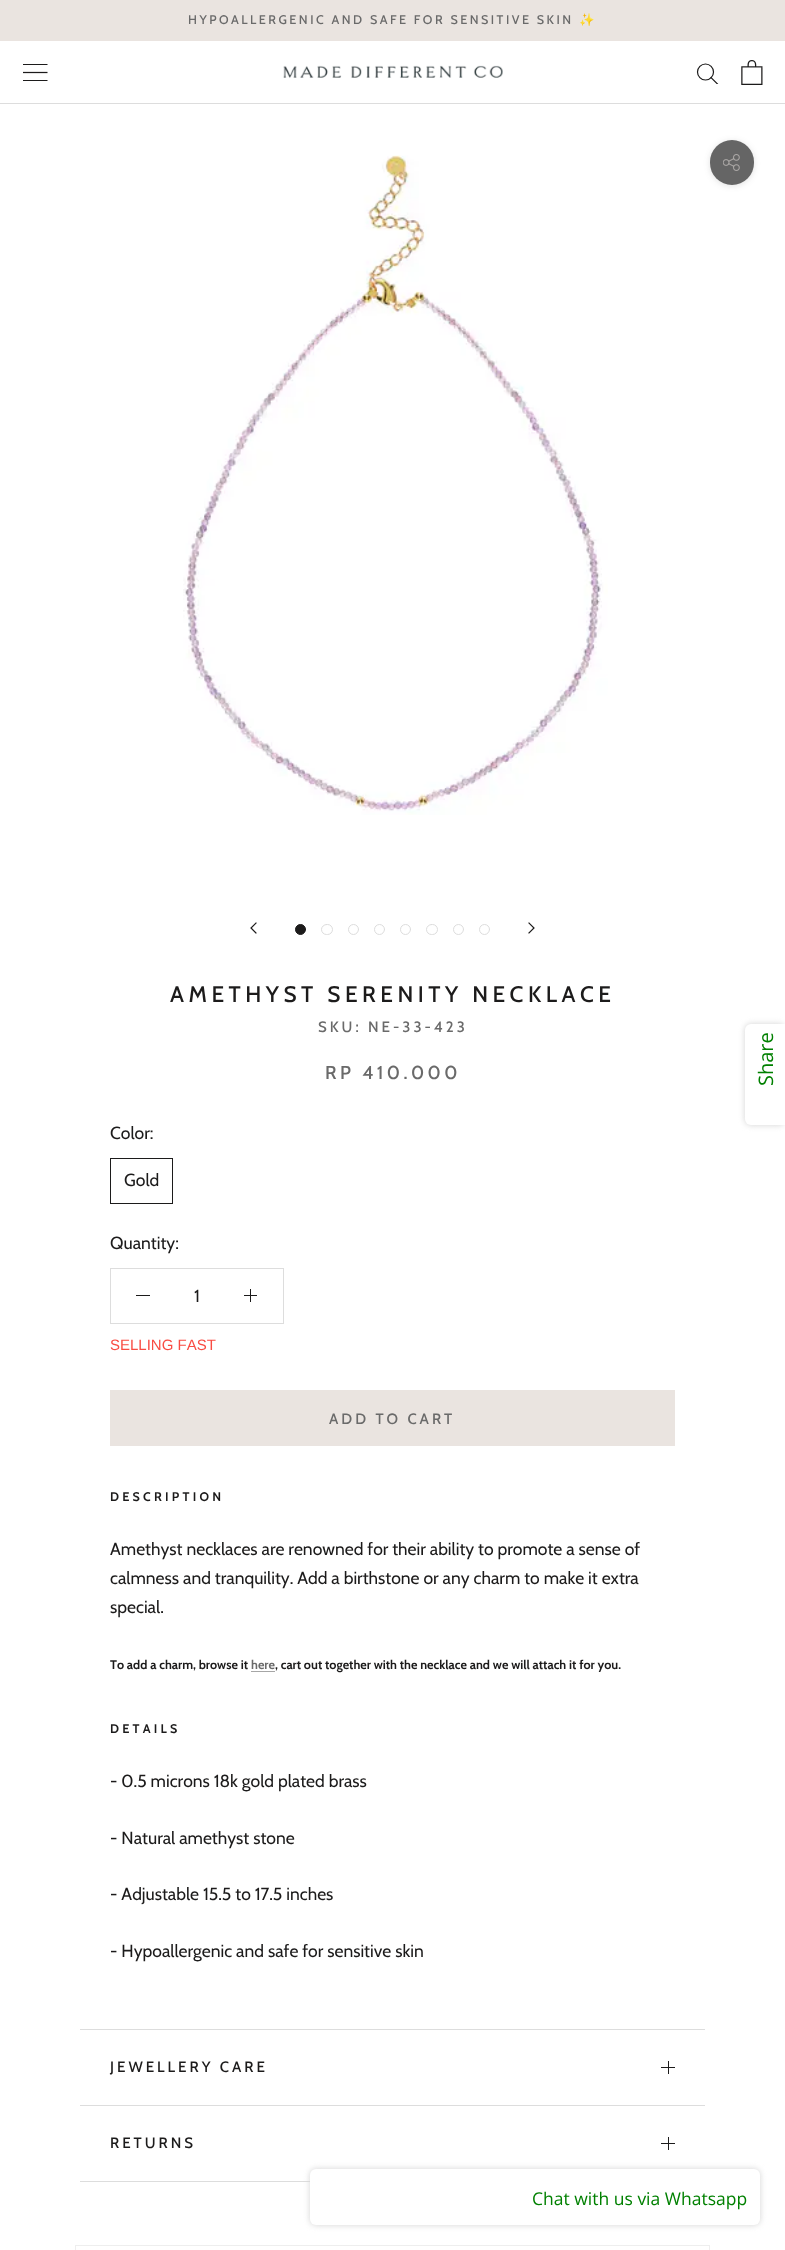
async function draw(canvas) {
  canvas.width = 785;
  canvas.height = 2250;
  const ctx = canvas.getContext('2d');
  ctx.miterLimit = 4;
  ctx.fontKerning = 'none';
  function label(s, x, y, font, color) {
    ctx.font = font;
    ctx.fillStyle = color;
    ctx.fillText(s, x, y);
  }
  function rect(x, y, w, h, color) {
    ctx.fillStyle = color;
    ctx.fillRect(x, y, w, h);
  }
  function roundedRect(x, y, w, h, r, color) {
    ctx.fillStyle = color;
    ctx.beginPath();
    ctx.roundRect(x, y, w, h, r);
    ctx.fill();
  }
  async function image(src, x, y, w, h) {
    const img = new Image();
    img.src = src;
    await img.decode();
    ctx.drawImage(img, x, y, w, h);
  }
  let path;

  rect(0, 0, 785, 2250, '#fff');
  rect(0, 0, 785, 41, '#eae4e0');
  ctx.letterSpacing = '2.5px';
  label('HYPOALLERGENIC AND SAFE FOR SENSITIVE SKIN', 188, 24, '500 12.5px Cabin', '#6a6a6a');
  label('✨', 579, 24, '12.5px Noto Color Emoji', '#6a6a6a');
  rect(0, 103, 785, 1, '#ddd');
  await image('assets/img1.png', 23, 64, 25, 17);
  await image('assets/img2.png', 283, 65, 220, 13);
  ctx.save();
  ctx.beginPath();
  ctx.rect(696, 63, 23, 21);
  ctx.clip();
  path = new Path2D('M717.5 84L711 77.5');
  ctx.strokeStyle = '#1c1b1b';
  ctx.lineWidth = 1.2;
  ctx.lineCap = 'square';
  ctx.stroke(path);
  ctx.restore();
  ctx.beginPath();
  ctx.arc(705.5, 72, 8, 0, 2 * Math.PI);
  ctx.strokeStyle = '#1c1b1b';
  ctx.lineWidth = 1.2;
  ctx.stroke();
  await image('assets/img3.png', 741, 60, 22, 25);
  await image('assets/img4.png', 183, 155, 425, 660);
  ctx.fillStyle = '#36363626';
  ctx.filter = 'blur(3px)';
  ctx.beginPath();
  ctx.roundRect(710, 141, 44, 45, 22);
  ctx.fill();
  ctx.filter = 'none';
  roundedRect(710, 140, 44, 45, 22, '#656565');
  await image('assets/img5.png', 723, 154, 17, 17);
  path = new Path2D('M256 933L251 928L256 923');
  ctx.lineCap = 'square';
  ctx.stroke(path);
  ctx.fillStyle = '#1c1b1b';
  ctx.beginPath();
  ctx.arc(300.5, 929.5, 5, 0, 2 * Math.PI);
  ctx.fill();
  ctx.lineWidth = 1;
  ctx.stroke();
  ctx.beginPath();
  ctx.roundRect(321.5, 924.5, 11, 10, 5);
  ctx.strokeStyle = '#ddd';
  ctx.stroke();
  ctx.beginPath();
  ctx.arc(353.5, 929.5, 5, 0, 2 * Math.PI);
  ctx.stroke();
  ctx.beginPath();
  ctx.arc(379.5, 929.5, 5, 0, 2 * Math.PI);
  ctx.stroke();
  ctx.beginPath();
  ctx.arc(405.5, 929.5, 5, 0, 2 * Math.PI);
  ctx.stroke();
  ctx.beginPath();
  ctx.roundRect(426.5, 924.5, 11, 10, 5);
  ctx.stroke();
  ctx.beginPath();
  ctx.arc(458.5, 929.5, 5, 0, 2 * Math.PI);
  ctx.stroke();
  ctx.beginPath();
  ctx.arc(484.5, 929.5, 5, 0, 2 * Math.PI);
  ctx.stroke();
  path = new Path2D('M529 933L534 928L529 923');
  ctx.strokeStyle = '#1c1b1b';
  ctx.lineWidth = 1.2;
  ctx.stroke(path);
  ctx.letterSpacing = '4.5px';
  label('AMETHYST SERENITY NECKLACE', 170, 1002, '500 22.5px Cabin', '#1c1b1b');
  ctx.letterSpacing = '3px';
  label('SKU: NE-33-423', 318, 1032, '500 15px Cabin', '#6a6a6a');
  ctx.letterSpacing = '3.5px';
  label('RP 410.000', 325, 1079, '500 18.75px Cabin', '#6a6a6a');
  ctx.letterSpacing = '0px';
  label('Color:', 110, 1139, '17.5px Cabin', '#1c1b1b');
  ctx.lineWidth = 1;
  ctx.strokeRect(110.5, 1158.5, 62, 45);
  label('Gold', 124, 1186, '17.5px Cabin', '#1c1b1b');
  label('Quantity:', 110, 1249, '17.5px Cabin', '#1c1b1b');
  ctx.strokeStyle = '#ddd';
  ctx.strokeRect(110.5, 1268.5, 173, 55);
  rect(136, 1295, 14, 1, '#1c1b1b');
  label('1', 194, 1302, '17.5px Cabin', '#1c1b1b');
  rect(250, 1289, 1, 13, '#1c1b1b');
  rect(244, 1295, 13, 1, '#1c1b1b');
  label('SELLING FAST', 110, 1350, '15px Liberation Sans', '#f94c43');
  ctx.strokeStyle = '#eae4e0';
  ctx.strokeRect(110.5, 1390.5, 564, 55);
  rect(111, 1391, 563, 54, '#eae4e0');
  ctx.letterSpacing = '3px';
  label('ADD TO CART', 329, 1424, '500 15px Cabin', '#6a6a6a');
  ctx.letterSpacing = '3.25px';
  label('DESCRIPTION', 110, 1501, 'bold 12.5px Cabin', '#1c1b1b');
  ctx.letterSpacing = '0px';
  label('Amethyst necklaces are renowned for their ability to promote a sense of', 110, 1555, '17.5px Cabin', '#1c1b1b');
  label('calmness and tranquility. Add a birthstone or any charm to make it extra', 110, 1584, '17.5px Cabin', '#1c1b1b');
  label('special.', 110, 1613, '17.5px Cabin', '#1c1b1b');
  label('To add a charm, browse it', 110, 1669, 'bold 12.5px Cabin', '#1c1b1b');
  label('here', 251, 1669, 'bold 12.5px Cabin', '#6a6a6a');
  label(', cart out together with the necklace and we will attach it for you.', 275, 1669, 'bold 12.5px Cabin', '#1c1b1b');
  rect(251, 1671, 24, 1, '#a6a6a6');
  ctx.letterSpacing = '3.25px';
  label('DETAILS', 110, 1733, 'bold 12.5px Cabin', '#1c1b1b');
  ctx.letterSpacing = '0px';
  label('- 0.5 microns 18k gold plated brass', 110, 1787, '17.5px Cabin', '#1c1b1b');
  label('- Natural amethyst stone', 110, 1844, '17.5px Cabin', '#1c1b1b');
  label('- Adjustable 15.5 to 17.5 inches', 110, 1900, '17.5px Cabin', '#1c1b1b');
  label('- Hypoallergenic and safe for sensitive skin', 110, 1957, '17.5px Cabin', '#1c1b1b');
  rect(80, 2029, 625, 1, '#ddd');
  rect(80, 2105, 625, 1, '#ddd');
  ctx.letterSpacing = '3px';
  label('JEWELLERY CARE', 110, 2072, '500 15px Cabin', '#1c1b1b');
  rect(668, 2061, 1, 13, '#1c1b1b');
  rect(661, 2067, 14, 1, '#1c1b1b');
  rect(80, 2181, 230, 1, '#ddd');
  label('RETURNS', 110, 2148, '500 15px Cabin', '#1c1b1b');
  rect(668, 2137, 1, 13, '#1c1b1b');
  rect(661, 2143, 14, 1, '#1c1b1b');
  ctx.strokeStyle = '#eee';
  ctx.strokeRect(75.5, 2245.5, 634, 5);
  ctx.fillStyle = '#d3d3d3';
  ctx.filter = 'blur(3px)';
  ctx.beginPath();
  ctx.roundRect(745, 1024, 40, 101, 6);
  ctx.fill();
  ctx.filter = 'none';
  ctx.fillStyle = '#fff';
  ctx.beginPath();
  ctx.roundRect(745, 1024, 40, 101, [6, 0, 0, 6]);
  ctx.fill();
  ctx.letterSpacing = '0px';
  ctx.font = '20px Open Sans';
  ctx.fillStyle = '#008000';
  ctx.save();
  ctx.translate(773, 1086);
  ctx.rotate(-90 * Math.PI / 180);
  ctx.fillText('Share', 0, 0);
  ctx.restore();
  ctx.fillStyle = '#d3d3d3';
  ctx.filter = 'blur(3px)';
  ctx.beginPath();
  ctx.roundRect(310, 2169, 450, 56, 6);
  ctx.fill();
  ctx.filter = 'none';
  roundedRect(310, 2169, 450, 56, 6, '#fff');
  label('Chat with us via Whatsapp', 532, 2205, '17.5px Open Sans', '#008000');
}

draw(document.querySelector('canvas'));
